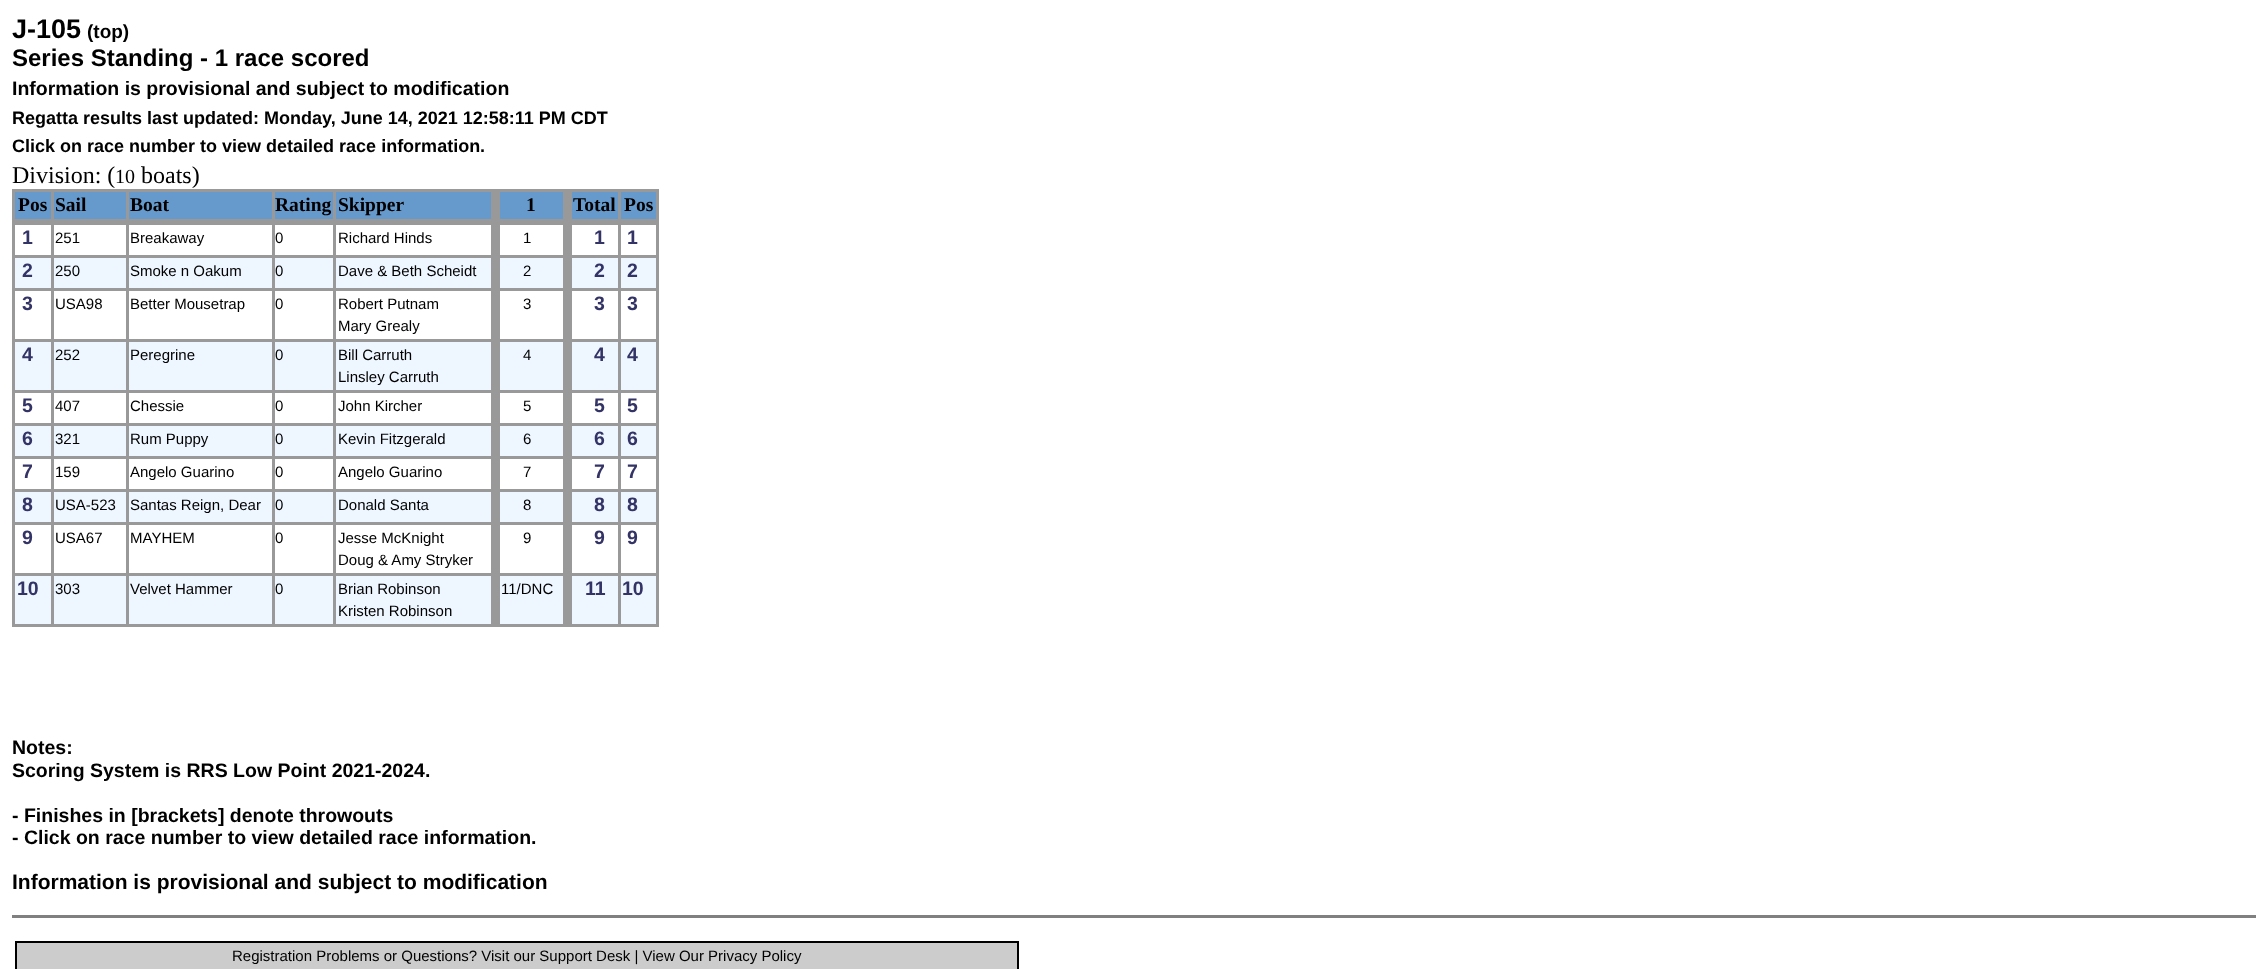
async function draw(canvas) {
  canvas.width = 2265;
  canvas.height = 969;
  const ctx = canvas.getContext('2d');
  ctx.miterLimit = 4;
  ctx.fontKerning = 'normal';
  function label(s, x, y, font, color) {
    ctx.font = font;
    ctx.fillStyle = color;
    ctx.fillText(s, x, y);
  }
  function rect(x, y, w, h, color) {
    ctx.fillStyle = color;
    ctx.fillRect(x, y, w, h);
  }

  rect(0, 0, 2265, 969, '#fff');
  label('J-105', 12, 38, 'bold 27px Liberation Sans', '#000');
  label('(top)', 87, 38, 'bold 19px Liberation Sans', '#000');
  label('Series Standing - 1 race scored', 12, 66, 'bold 24px Liberation Sans', '#000');
  label('Information is provisional and subject to modification', 12, 95, 'bold 19.5px Liberation Sans', '#000');
  label('Regatta results last updated: Monday, June 14, 2021 12:58:11 PM CDT', 12, 124, 'bold 18px Liberation Sans', '#000');
  label('Click on race number to view detailed race information.', 12, 152, 'bold 18px Liberation Sans', '#000');
  label('Division: (', 12, 183, '24px Liberation Serif', '#000');
  label('10', 115, 183, '20px Liberation Serif', '#000');
  label('boats)', 141, 183, '24px Liberation Serif', '#000');
  rect(12, 189, 647, 438, '#999');
  rect(15, 192, 36, 27, '#69c');
  label('Pos', 18, 211, 'bold 19.5px Liberation Serif', '#000');
  rect(54, 192, 72, 27, '#69c');
  label('Sail', 55, 211, 'bold 19.5px Liberation Serif', '#000');
  rect(129, 192, 143, 27, '#69c');
  label('Boat', 130, 211, 'bold 19.5px Liberation Serif', '#000');
  rect(275, 192, 58, 27, '#69c');
  label('Rating', 275, 211, 'bold 19.5px Liberation Serif', '#000');
  rect(336, 192, 155, 27, '#69c');
  label('Skipper', 338, 211, 'bold 19.5px Liberation Serif', '#000');
  rect(500, 192, 63, 27, '#69c');
  label('1', 526, 211, 'bold 19.5px Liberation Serif', '#000');
  rect(572, 192, 46, 27, '#69c');
  label('Total', 573, 211, 'bold 19.5px Liberation Serif', '#000');
  rect(621, 192, 35, 27, '#69c');
  label('Pos', 624, 211, 'bold 19.5px Liberation Serif', '#000');
  rect(15, 225, 36, 30, '#fff');
  label('1', 22, 244, 'bold 19.5px Liberation Sans', '#336');
  rect(54, 225, 72, 30, '#fff');
  label('251', 55, 243, '15px Liberation Sans', '#000');
  rect(129, 225, 143, 30, '#fff');
  label('Breakaway', 130, 243, '15px Liberation Sans', '#000');
  rect(275, 225, 58, 30, '#fff');
  label('0', 275, 243, '15px Liberation Sans', '#000');
  rect(336, 225, 155, 30, '#fff');
  label('Richard Hinds', 338, 243, '15px Liberation Sans', '#000');
  rect(500, 225, 63, 30, '#fff');
  label('1', 523, 243, '15px Liberation Sans', '#000');
  rect(572, 225, 46, 30, '#fff');
  label('1', 594, 244, 'bold 19.5px Liberation Sans', '#336');
  rect(621, 225, 35, 30, '#fff');
  label('1', 627, 244, 'bold 19.5px Liberation Sans', '#336');
  rect(15, 258, 36, 30, '#eef6ff');
  label('2', 22, 277, 'bold 19.5px Liberation Sans', '#336');
  rect(54, 258, 72, 30, '#eef6ff');
  label('250', 55, 276, '15px Liberation Sans', '#000');
  rect(129, 258, 143, 30, '#eef6ff');
  label('Smoke n Oakum', 130, 276, '15px Liberation Sans', '#000');
  rect(275, 258, 58, 30, '#eef6ff');
  label('0', 275, 276, '15px Liberation Sans', '#000');
  rect(336, 258, 155, 30, '#eef6ff');
  label('Dave & Beth Scheidt', 338, 276, '15px Liberation Sans', '#000');
  rect(500, 258, 63, 30, '#eef6ff');
  label('2', 523, 276, '15px Liberation Sans', '#000');
  rect(572, 258, 46, 30, '#eef6ff');
  label('2', 594, 277, 'bold 19.5px Liberation Sans', '#336');
  rect(621, 258, 35, 30, '#eef6ff');
  label('2', 627, 277, 'bold 19.5px Liberation Sans', '#336');
  rect(15, 291, 36, 48, '#fff');
  label('3', 22, 310, 'bold 19.5px Liberation Sans', '#336');
  rect(54, 291, 72, 48, '#fff');
  label('USA98', 55, 309, '15px Liberation Sans', '#000');
  rect(129, 291, 143, 48, '#fff');
  label('Better Mousetrap', 130, 309, '15px Liberation Sans', '#000');
  rect(275, 291, 58, 48, '#fff');
  label('0', 275, 309, '15px Liberation Sans', '#000');
  rect(336, 291, 155, 48, '#fff');
  label('Robert Putnam', 338, 309, '15px Liberation Sans', '#000');
  label('Mary Grealy', 338, 331, '15px Liberation Sans', '#000');
  rect(500, 291, 63, 48, '#fff');
  label('3', 523, 309, '15px Liberation Sans', '#000');
  rect(572, 291, 46, 48, '#fff');
  label('3', 594, 310, 'bold 19.5px Liberation Sans', '#336');
  rect(621, 291, 35, 48, '#fff');
  label('3', 627, 310, 'bold 19.5px Liberation Sans', '#336');
  rect(15, 342, 36, 48, '#eef6ff');
  label('4', 22, 361, 'bold 19.5px Liberation Sans', '#336');
  rect(54, 342, 72, 48, '#eef6ff');
  label('252', 55, 360, '15px Liberation Sans', '#000');
  rect(129, 342, 143, 48, '#eef6ff');
  label('Peregrine', 130, 360, '15px Liberation Sans', '#000');
  rect(275, 342, 58, 48, '#eef6ff');
  label('0', 275, 360, '15px Liberation Sans', '#000');
  rect(336, 342, 155, 48, '#eef6ff');
  label('Bill Carruth', 338, 360, '15px Liberation Sans', '#000');
  label('Linsley Carruth', 338, 382, '15px Liberation Sans', '#000');
  rect(500, 342, 63, 48, '#eef6ff');
  label('4', 523, 360, '15px Liberation Sans', '#000');
  rect(572, 342, 46, 48, '#eef6ff');
  label('4', 594, 361, 'bold 19.5px Liberation Sans', '#336');
  rect(621, 342, 35, 48, '#eef6ff');
  label('4', 627, 361, 'bold 19.5px Liberation Sans', '#336');
  rect(15, 393, 36, 30, '#fff');
  label('5', 22, 412, 'bold 19.5px Liberation Sans', '#336');
  rect(54, 393, 72, 30, '#fff');
  label('407', 55, 411, '15px Liberation Sans', '#000');
  rect(129, 393, 143, 30, '#fff');
  label('Chessie', 130, 411, '15px Liberation Sans', '#000');
  rect(275, 393, 58, 30, '#fff');
  label('0', 275, 411, '15px Liberation Sans', '#000');
  rect(336, 393, 155, 30, '#fff');
  label('John Kircher', 338, 411, '15px Liberation Sans', '#000');
  rect(500, 393, 63, 30, '#fff');
  label('5', 523, 411, '15px Liberation Sans', '#000');
  rect(572, 393, 46, 30, '#fff');
  label('5', 594, 412, 'bold 19.5px Liberation Sans', '#336');
  rect(621, 393, 35, 30, '#fff');
  label('5', 627, 412, 'bold 19.5px Liberation Sans', '#336');
  rect(15, 426, 36, 30, '#eef6ff');
  label('6', 22, 445, 'bold 19.5px Liberation Sans', '#336');
  rect(54, 426, 72, 30, '#eef6ff');
  label('321', 55, 444, '15px Liberation Sans', '#000');
  rect(129, 426, 143, 30, '#eef6ff');
  label('Rum Puppy', 130, 444, '15px Liberation Sans', '#000');
  rect(275, 426, 58, 30, '#eef6ff');
  label('0', 275, 444, '15px Liberation Sans', '#000');
  rect(336, 426, 155, 30, '#eef6ff');
  label('Kevin Fitzgerald', 338, 444, '15px Liberation Sans', '#000');
  rect(500, 426, 63, 30, '#eef6ff');
  label('6', 523, 444, '15px Liberation Sans', '#000');
  rect(572, 426, 46, 30, '#eef6ff');
  label('6', 594, 445, 'bold 19.5px Liberation Sans', '#336');
  rect(621, 426, 35, 30, '#eef6ff');
  label('6', 627, 445, 'bold 19.5px Liberation Sans', '#336');
  rect(15, 459, 36, 30, '#fff');
  label('7', 22, 478, 'bold 19.5px Liberation Sans', '#336');
  rect(54, 459, 72, 30, '#fff');
  label('159', 55, 477, '15px Liberation Sans', '#000');
  rect(129, 459, 143, 30, '#fff');
  label('Angelo Guarino', 130, 477, '15px Liberation Sans', '#000');
  rect(275, 459, 58, 30, '#fff');
  label('0', 275, 477, '15px Liberation Sans', '#000');
  rect(336, 459, 155, 30, '#fff');
  label('Angelo Guarino', 338, 477, '15px Liberation Sans', '#000');
  rect(500, 459, 63, 30, '#fff');
  label('7', 523, 477, '15px Liberation Sans', '#000');
  rect(572, 459, 46, 30, '#fff');
  label('7', 594, 478, 'bold 19.5px Liberation Sans', '#336');
  rect(621, 459, 35, 30, '#fff');
  label('7', 627, 478, 'bold 19.5px Liberation Sans', '#336');
  rect(15, 492, 36, 30, '#eef6ff');
  label('8', 22, 511, 'bold 19.5px Liberation Sans', '#336');
  rect(54, 492, 72, 30, '#eef6ff');
  label('USA-523', 55, 510, '15px Liberation Sans', '#000');
  rect(129, 492, 143, 30, '#eef6ff');
  label('Santas Reign, Dear', 130, 510, '15px Liberation Sans', '#000');
  rect(275, 492, 58, 30, '#eef6ff');
  label('0', 275, 510, '15px Liberation Sans', '#000');
  rect(336, 492, 155, 30, '#eef6ff');
  label('Donald Santa', 338, 510, '15px Liberation Sans', '#000');
  rect(500, 492, 63, 30, '#eef6ff');
  label('8', 523, 510, '15px Liberation Sans', '#000');
  rect(572, 492, 46, 30, '#eef6ff');
  label('8', 594, 511, 'bold 19.5px Liberation Sans', '#336');
  rect(621, 492, 35, 30, '#eef6ff');
  label('8', 627, 511, 'bold 19.5px Liberation Sans', '#336');
  rect(15, 525, 36, 48, '#fff');
  label('9', 22, 544, 'bold 19.5px Liberation Sans', '#336');
  rect(54, 525, 72, 48, '#fff');
  label('USA67', 55, 543, '15px Liberation Sans', '#000');
  rect(129, 525, 143, 48, '#fff');
  label('MAYHEM', 130, 543, '15px Liberation Sans', '#000');
  rect(275, 525, 58, 48, '#fff');
  label('0', 275, 543, '15px Liberation Sans', '#000');
  rect(336, 525, 155, 48, '#fff');
  label('Jesse McKnight', 338, 543, '15px Liberation Sans', '#000');
  label('Doug & Amy Stryker', 338, 565, '15px Liberation Sans', '#000');
  rect(500, 525, 63, 48, '#fff');
  label('9', 523, 543, '15px Liberation Sans', '#000');
  rect(572, 525, 46, 48, '#fff');
  label('9', 594, 544, 'bold 19.5px Liberation Sans', '#336');
  rect(621, 525, 35, 48, '#fff');
  label('9', 627, 544, 'bold 19.5px Liberation Sans', '#336');
  rect(15, 576, 36, 48, '#eef6ff');
  label('10', 17, 595, 'bold 19.5px Liberation Sans', '#336');
  rect(54, 576, 72, 48, '#eef6ff');
  label('303', 55, 594, '15px Liberation Sans', '#000');
  rect(129, 576, 143, 48, '#eef6ff');
  label('Velvet Hammer', 130, 594, '15px Liberation Sans', '#000');
  rect(275, 576, 58, 48, '#eef6ff');
  label('0', 275, 594, '15px Liberation Sans', '#000');
  rect(336, 576, 155, 48, '#eef6ff');
  label('Brian Robinson', 338, 594, '15px Liberation Sans', '#000');
  label('Kristen Robinson', 338, 616, '15px Liberation Sans', '#000');
  rect(500, 576, 63, 48, '#eef6ff');
  label('11/DNC', 501, 594, '15px Liberation Sans', '#000');
  rect(572, 576, 46, 48, '#eef6ff');
  label('11', 585, 595, 'bold 19.5px Liberation Sans', '#336');
  rect(621, 576, 35, 48, '#eef6ff');
  label('10', 622, 595, 'bold 19.5px Liberation Sans', '#336');
  label('Notes:', 12, 754, 'bold 19.5px Liberation Sans', '#000');
  label('Scoring System is RRS Low Point 2021-2024.', 12, 777, 'bold 19.5px Liberation Sans', '#000');
  label('- Finishes in [brackets] denote throwouts', 12, 822, 'bold 19.5px Liberation Sans', '#000');
  label('- Click on race number to view detailed race information.', 12, 844, 'bold 19.5px Liberation Sans', '#000');
  label('Information is provisional and subject to modification', 12, 889, 'bold 21px Liberation Sans', '#000');
  rect(12, 915, 2244, 3, '#808080');
  ctx.fillStyle = '#ccc';
  ctx.beginPath();
  ctx.rect(16, 942, 1002, 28);
  ctx.fill();
  ctx.strokeStyle = '#000';
  ctx.lineWidth = 2;
  ctx.stroke();
  label('Registration Problems or Questions? Visit our Support Desk | View Our Privacy Policy', 232, 961, '15px Liberation Sans', '#000');
}

draw(document.querySelector('canvas'));
